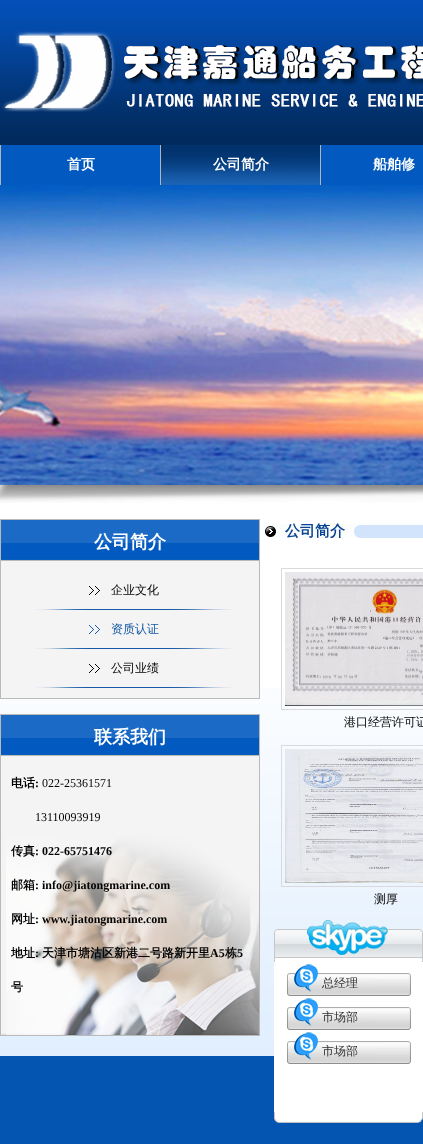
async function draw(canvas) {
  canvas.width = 423;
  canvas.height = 1144;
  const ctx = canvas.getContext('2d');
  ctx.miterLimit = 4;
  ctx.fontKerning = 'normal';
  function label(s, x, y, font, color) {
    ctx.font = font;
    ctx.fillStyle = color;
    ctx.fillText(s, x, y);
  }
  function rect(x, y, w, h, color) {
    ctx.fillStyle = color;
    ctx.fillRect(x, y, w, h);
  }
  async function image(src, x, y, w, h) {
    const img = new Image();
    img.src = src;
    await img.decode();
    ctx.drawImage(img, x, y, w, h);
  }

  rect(0, 0, 423, 1144, '#fff');
  await image('assets/img1.png', 0, 688, 423, 368);
  await image('assets/img2.png', 0, 0, 423, 145);
  await image('assets/img3.png', 2, 31, 421, 81);
  rect(1, 145, 422, 40, '#025ac0');
  rect(0, 145, 1, 40, '#b1b4bb');
  rect(160, 145, 1, 40, '#b1b4bb');
  label('首页', 67, 169, 'bold 14px WenQuanYi Zen Hei', '#fff');
  rect(320, 145, 1, 40, '#b1b4bb');
  await image('assets/img4.png', 161, 145, 159, 40);
  label('公司简介', 213, 169, 'bold 14px WenQuanYi Zen Hei', '#fff');
  label('船舶修', 373, 169, 'bold 14px WenQuanYi Zen Hei', '#fff');
  await image('assets/img5.png', 0, 485, 423, 18);
  await image('assets/img6.png', 0, 185, 423, 300);
  rect(1, 561, 258, 137, '#f4f4f5');
  ctx.strokeStyle = '#bab9b9';
  ctx.strokeRect(0.5, 519.5, 259, 179);
  await image('assets/img7.png', 1, 520, 258, 40);
  rect(1, 560, 258, 1, '#bab9b9');
  label('公司简介', 94, 548, 'bold 18px WenQuanYi Zen Hei', '#fff');
  await image('assets/img8.png', 35, 580, 198, 30);
  label('企业文化', 111, 594, '500 12px WenQuanYi Zen Hei', '#040404');
  await image('assets/img9.png', 35, 618, 198, 31);
  label('资质认证', 111, 633, '500 12px WenQuanYi Zen Hei', '#1358a5');
  await image('assets/img8.png', 35, 658, 198, 30);
  label('公司业绩', 111, 672, '500 12px WenQuanYi Zen Hei', '#040404');
  ctx.strokeRect(0.5, 714.5, 259, 321);
  await image('assets/img7.png', 1, 715, 258, 40);
  rect(1, 755, 258, 1, '#bab9b9');
  label('联系我们', 94, 743, 'bold 18px WenQuanYi Zen Hei', '#fff');
  await image('assets/img10.png', 1, 756, 258, 279);
  label('电话', 11, 787, 'bold 12px WenQuanYi Zen Hei', '#040404');
  label(':', 35, 787, 'bold 12px Liberation Serif', '#040404');
  label('022-25361571', 42, 787, '12px Liberation Serif', '#040404');
  label('13110093919', 35, 821, '12px Liberation Serif', '#040404');
  label('传真', 11, 855, 'bold 12px WenQuanYi Zen Hei', '#040404');
  label(': 022-65751476', 35, 855, 'bold 12px Liberation Serif', '#040404');
  label('邮箱', 11, 889, 'bold 12px WenQuanYi Zen Hei', '#040404');
  label(': info@jiatongmarine.com', 35, 889, 'bold 12px Liberation Serif', '#040404');
  label('网址', 11, 923, 'bold 12px WenQuanYi Zen Hei', '#040404');
  label(': www.jiatongmarine.com', 35, 923, 'bold 12px Liberation Serif', '#040404');
  label('地址', 11, 957, 'bold 12px WenQuanYi Zen Hei', '#040404');
  label(':', 35, 957, 'bold 12px Liberation Serif', '#040404');
  label('天津市塘沽区新港二号路新开里', 42, 957, 'bold 12px WenQuanYi Zen Hei', '#040404');
  label('A5', 210, 957, 'bold 12px Liberation Serif', '#040404');
  label('栋', 225, 957, 'bold 12px WenQuanYi Zen Hei', '#040404');
  label('5', 237, 957, 'bold 12px Liberation Serif', '#040404');
  label('号', 11, 991, 'bold 12px WenQuanYi Zen Hei', '#040404');
  await image('assets/img11.png', 265, 524, 158, 14);
  label('公司简介', 285, 536, 'bold 15px WenQuanYi Zen Hei', '#094391');
  ctx.strokeStyle = '#dadadc';
  ctx.strokeRect(281.5, 568.5, 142, 141);
  await image('assets/img12.png', 285, 572, 138, 134);
  label('港口经营许可证', 344, 726, '500 12px WenQuanYi Zen Hei', '#040404');
  ctx.strokeRect(281.5, 745.5, 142, 141);
  await image('assets/img13.png', 285, 749, 138, 134);
  label('测厚', 374, 903, '500 12px WenQuanYi Zen Hei', '#040404');
  await image('assets/img14.png', 274, 920, 149, 42);
  rect(0, 1056, 423, 88, '#0454b1');
  rect(274, 962, 149, 150, '#fff');
  await image('assets/img15.png', 287, 964, 124, 32);
  label('总经理', 322, 987, '500 12px WenQuanYi Zen Hei', '#333');
  await image('assets/img15.png', 287, 998, 124, 32);
  label('市场部', 322, 1021, '500 12px WenQuanYi Zen Hei', '#333');
  await image('assets/img15.png', 287, 1032, 124, 32);
  label('市场部', 322, 1055, '500 12px WenQuanYi Zen Hei', '#333');
  await image('assets/img16.png', 274, 1112, 149, 11);
}

draw(document.querySelector('canvas'));
